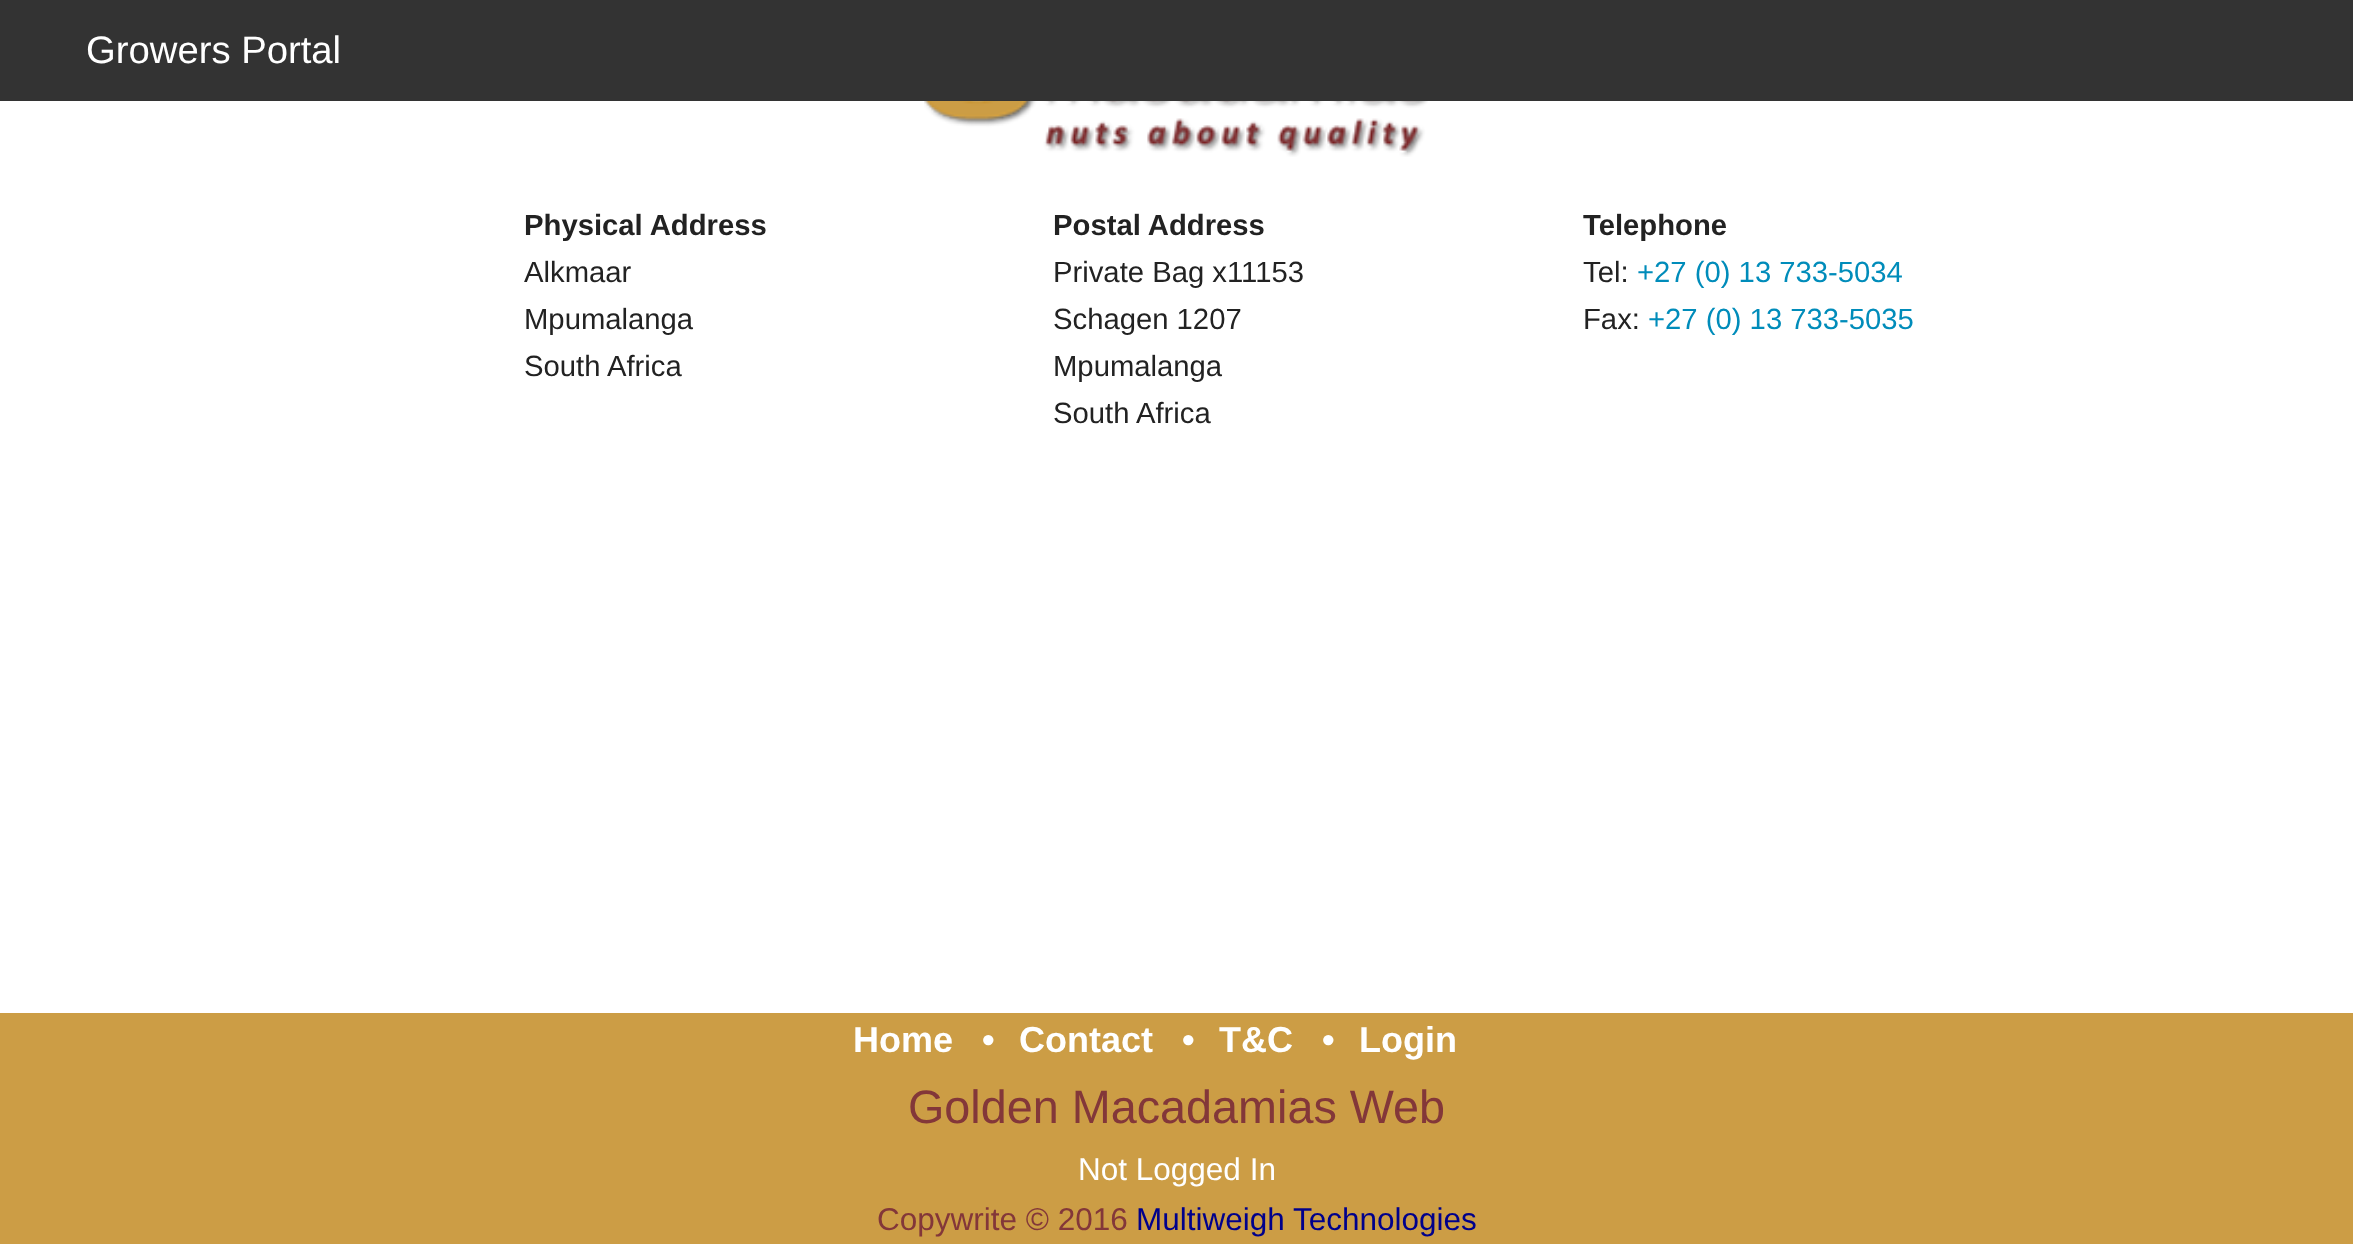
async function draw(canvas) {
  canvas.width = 2353;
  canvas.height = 1244;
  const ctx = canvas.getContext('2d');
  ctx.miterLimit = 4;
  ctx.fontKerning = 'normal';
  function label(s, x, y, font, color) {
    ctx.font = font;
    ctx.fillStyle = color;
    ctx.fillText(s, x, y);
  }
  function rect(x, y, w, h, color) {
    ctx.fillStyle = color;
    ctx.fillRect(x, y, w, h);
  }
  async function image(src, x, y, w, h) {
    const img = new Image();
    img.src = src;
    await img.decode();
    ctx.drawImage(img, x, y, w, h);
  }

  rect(0, 0, 2353, 1244, '#fff');
  rect(0, 0, 2353, 101, '#333');
  label('Growers Portal', 86, 63, '38.25px Liberation Sans', '#fff');
  await image('assets/img1.png', 924, 101, 504, 56);
  label('Physical Address', 524, 235, 'bold 29.25px Liberation Sans', '#222');
  label('Alkmaar', 524, 282, '29.25px Liberation Sans', '#222');
  label('Mpumalanga', 524, 329, '29.25px Liberation Sans', '#222');
  label('South Africa', 524, 376, '29.25px Liberation Sans', '#222');
  label('Postal Address', 1053, 235, 'bold 29.25px Liberation Sans', '#222');
  label('Private Bag x11153', 1053, 282, '29.25px Liberation Sans', '#222');
  label('Schagen 1207', 1053, 329, '29.25px Liberation Sans', '#222');
  label('Mpumalanga', 1053, 376, '29.25px Liberation Sans', '#222');
  label('South Africa', 1053, 423, '29.25px Liberation Sans', '#222');
  label('Telephone', 1583, 235, 'bold 29.25px Liberation Sans', '#222');
  label('Tel:', 1583, 282, '29.25px Liberation Sans', '#222');
  label('+27 (0) 13 733-5034', 1637, 282, '29.25px Liberation Sans', '#008cba');
  label('Fax:', 1583, 329, '29.25px Liberation Sans', '#222');
  label('+27 (0) 13 733-5035', 1648, 329, '29.25px Liberation Sans', '#008cba');
  rect(0, 1013, 2353, 231, '#cc9d45');
  label('Home', 853, 1052, 'bold 36px Liberation Sans', '#fff');
  label('•', 982, 1052, 'bold 36px Liberation Sans', '#fff');
  label('Contact', 1019, 1052, 'bold 36px Liberation Sans', '#fff');
  label('•', 1182, 1052, 'bold 36px Liberation Sans', '#fff');
  label('T&C', 1219, 1052, 'bold 36px Liberation Sans', '#fff');
  label('•', 1322, 1052, 'bold 36px Liberation Sans', '#fff');
  label('Login', 1359, 1052, 'bold 36px Liberation Sans', '#fff');
  label('Golden Macadamias Web', 908, 1123, '46.75px Liberation Sans', '#833739');
  label('Not Logged In', 1078, 1180, '31.5px Liberation Sans', '#fff');
  label('Copywrite © 2016', 877, 1230, '31.5px Liberation Sans', '#833739');
  label('Multiweigh Technologies', 1136, 1230, '31.5px Liberation Sans', '#00008b');
}

draw(document.querySelector('canvas'));
